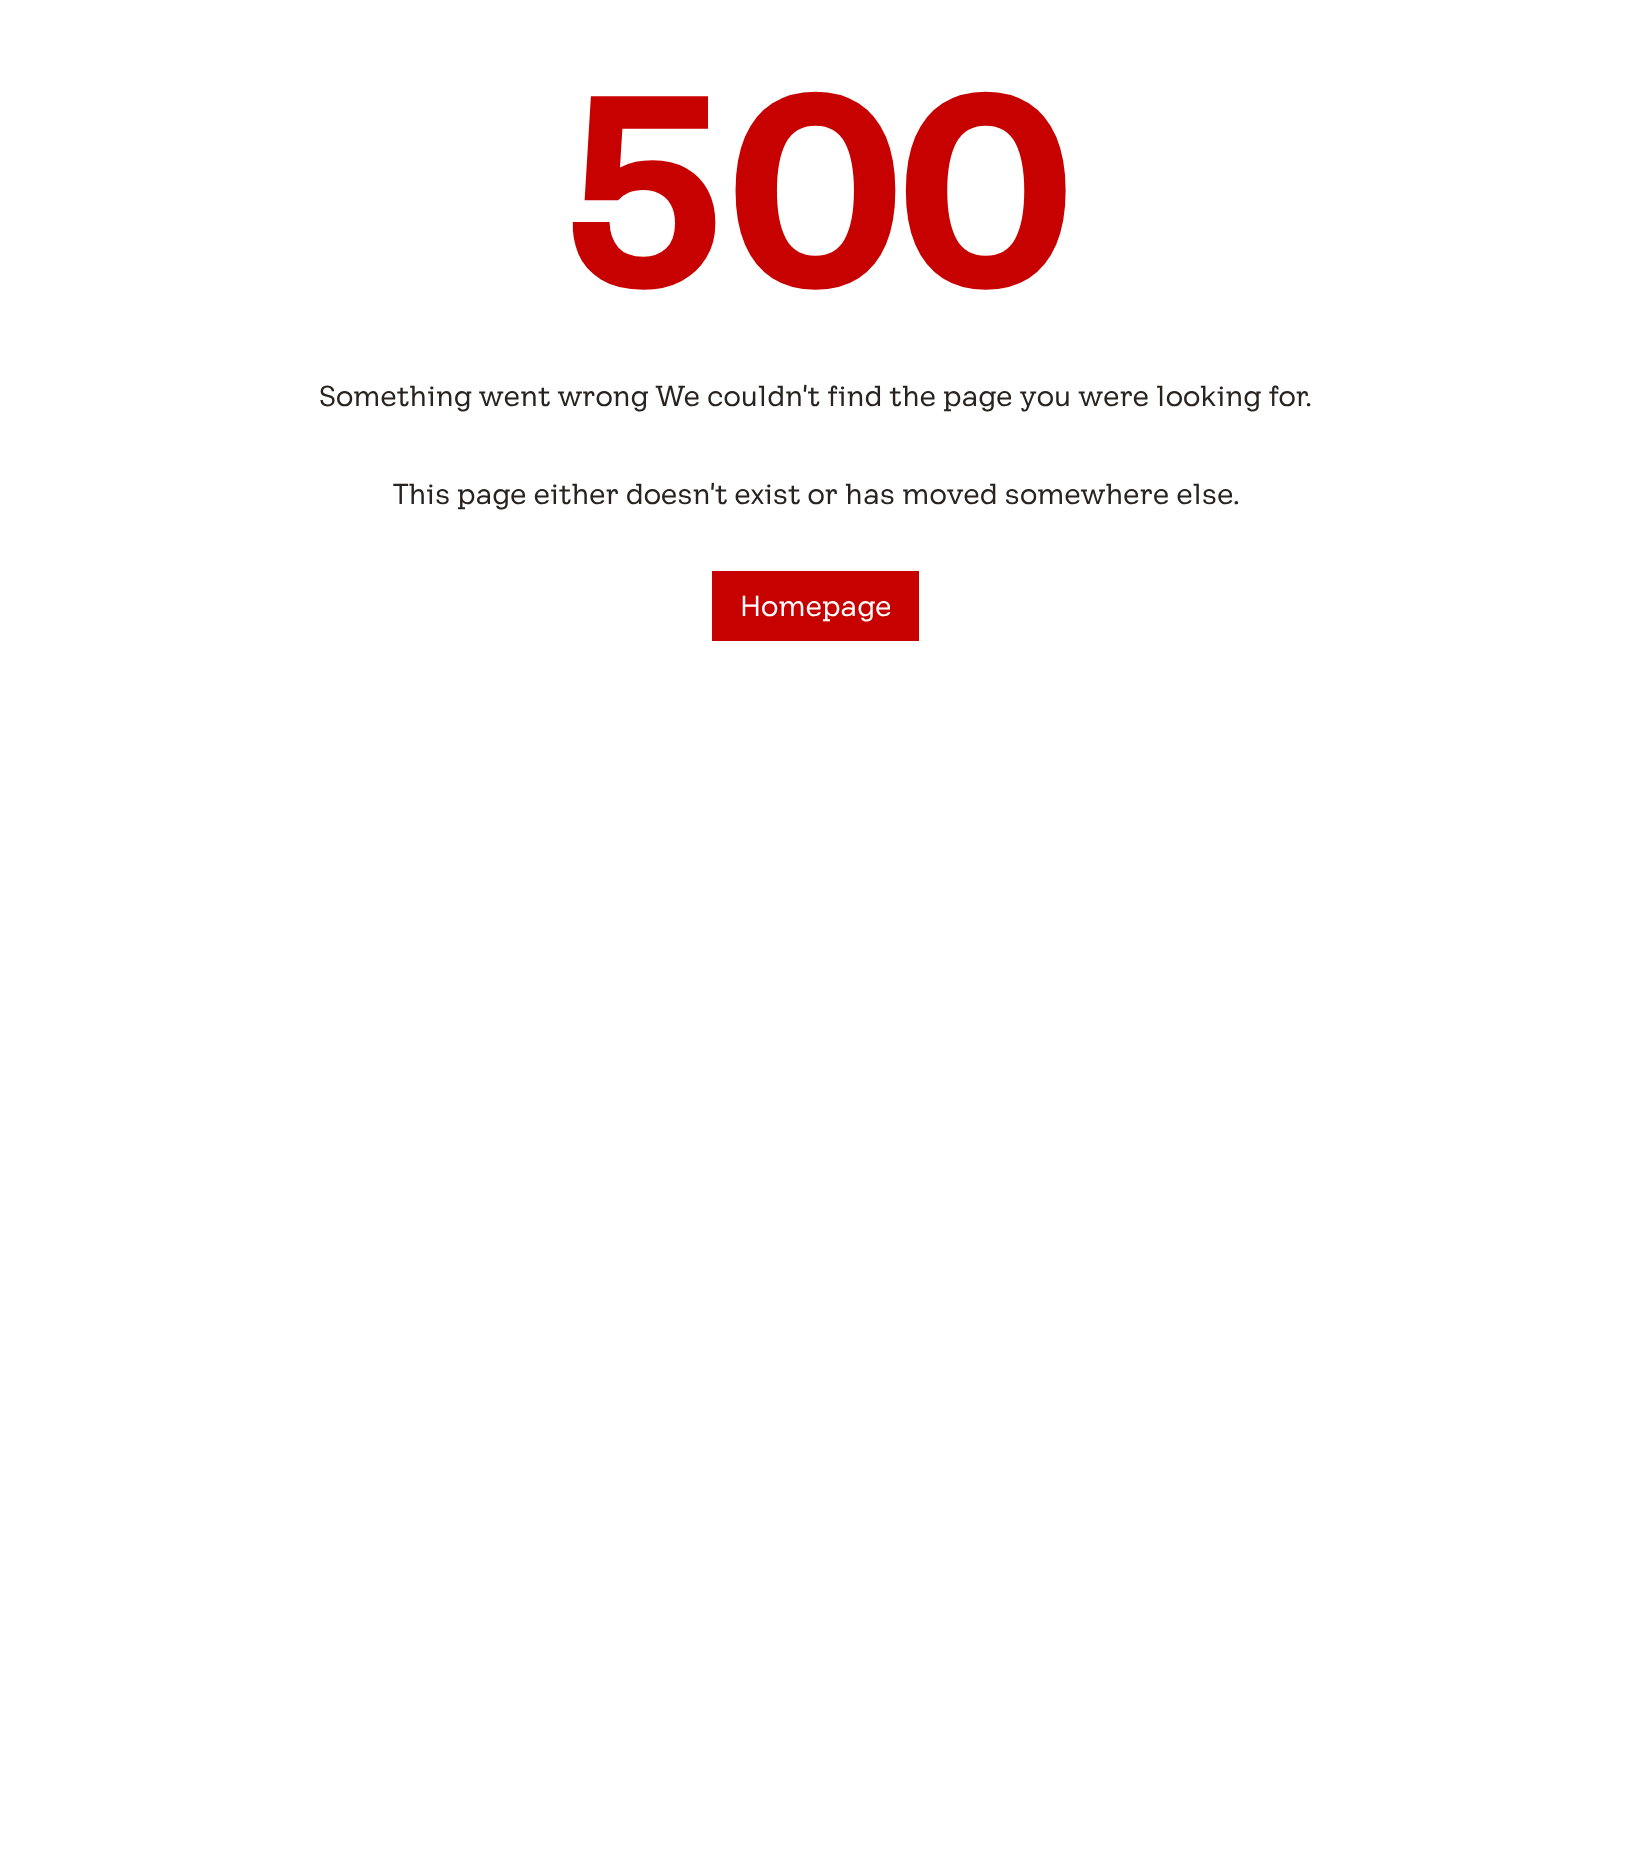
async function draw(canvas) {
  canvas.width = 1630;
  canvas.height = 1853;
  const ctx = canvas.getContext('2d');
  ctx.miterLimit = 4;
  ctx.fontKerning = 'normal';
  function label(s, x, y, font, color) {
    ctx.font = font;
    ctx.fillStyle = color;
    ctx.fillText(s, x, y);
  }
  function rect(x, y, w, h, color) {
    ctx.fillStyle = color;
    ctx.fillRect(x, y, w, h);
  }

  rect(0, 0, 1630, 1853, '#fff');
  label('500', 560, 285, 'bold 262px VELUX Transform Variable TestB', '#c70000');
  label('Something went wrong We couldn\'t find the page you were looking for.', 319, 406, '28px VELUX Transform Variable TestB', '#28231f');
  label('This page either doesn\'t exist or has moved somewhere else.', 393, 504, '28px VELUX Transform Variable TestB', '#28231f');
  rect(712, 571, 207, 70, '#c70000');
  label('Homepage', 740, 616, '28px VELUX Transform Variable TestB', '#fff');
}

draw(document.querySelector('canvas'));
